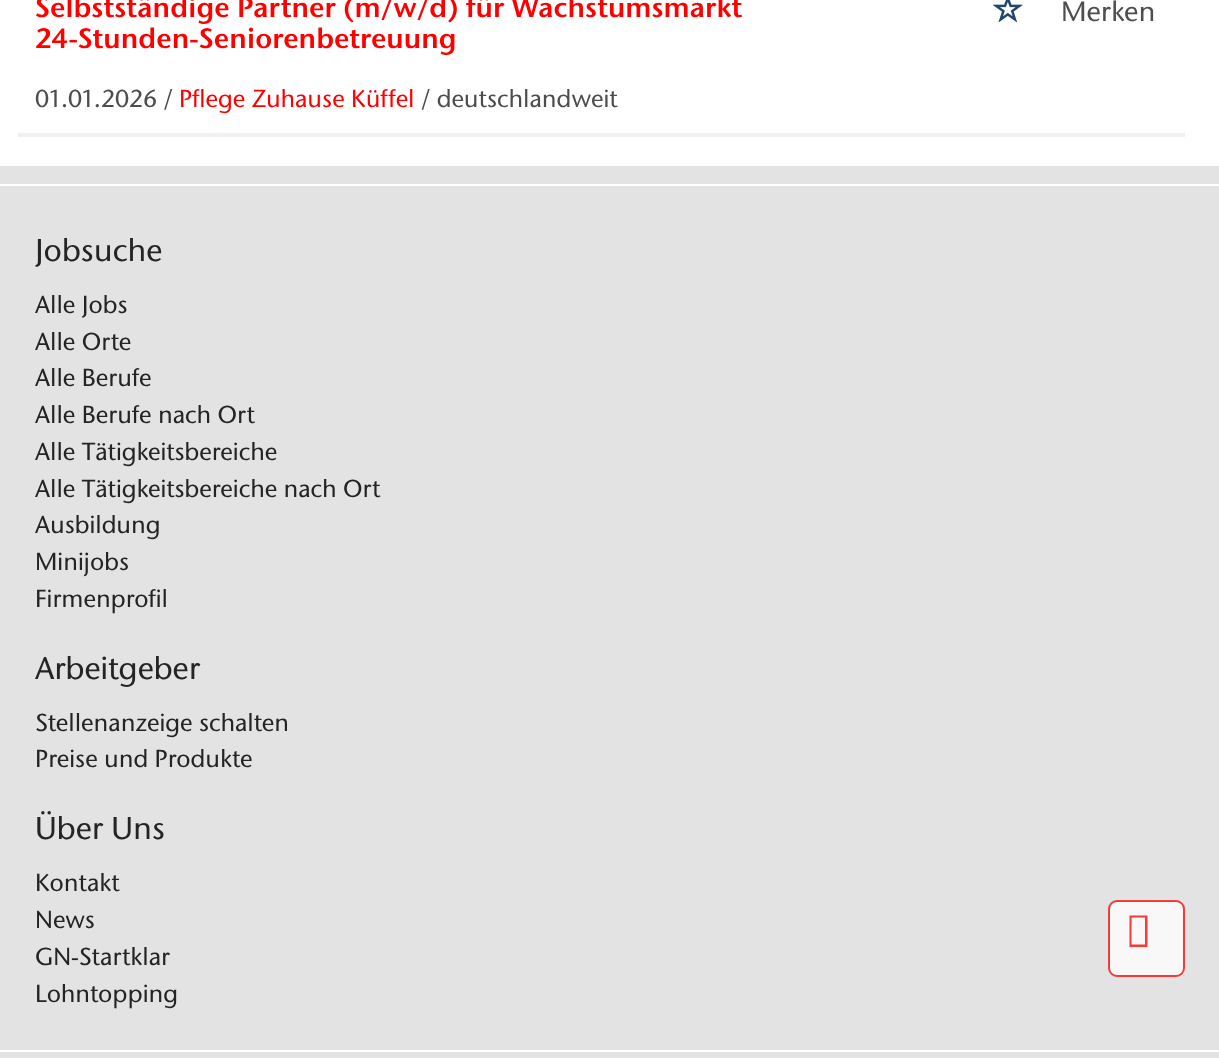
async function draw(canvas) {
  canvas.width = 1219;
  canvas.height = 1058;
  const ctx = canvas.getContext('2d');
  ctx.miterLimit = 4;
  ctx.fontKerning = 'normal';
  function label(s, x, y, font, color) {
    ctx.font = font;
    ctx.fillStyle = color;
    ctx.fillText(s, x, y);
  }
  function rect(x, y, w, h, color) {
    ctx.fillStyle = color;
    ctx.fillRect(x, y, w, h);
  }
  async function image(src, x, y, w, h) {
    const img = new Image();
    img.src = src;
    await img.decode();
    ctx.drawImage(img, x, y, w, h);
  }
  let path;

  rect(0, 0, 1219, 1058, '#fff');
  rect(0, 166, 1219, 18, '#e3e3e3');
  label('Selbstständige Partner (m/w/d) für Wachstumsmarkt', 35, 17, '600 28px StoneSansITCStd', '#f00');
  label('24-Stunden-Seniorenbetreuung', 35, 48, '600 28px StoneSansITCStd', '#f00');
  await image('assets/img1.png', 993, 0, 30, 23);
  label('Merken', 1061, 21, '500 28px StoneSansITCStd', '#4d4d4d');
  label('01.01.2026 /', 35, 107, '500 24.5px StoneSansITCStd', '#4d4d4d');
  label('Pflege Zuhause Küffel', 179, 107, '500 24.5px StoneSansITCStd', '#f00');
  label('/ deutschlandweit', 421, 107, '500 24.5px StoneSansITCStd', '#4d4d4d');
  rect(18, 133, 1167, 4, '#f0f0f0');
  rect(0, 186, 1219, 864, '#e3e3e3');
  label('Jobsuche', 35, 261, '500 31.5px StoneSansITCStd', '#242424');
  label('Alle Jobs', 35, 313, '500 24.5px StoneSansITCStd', '#242424');
  label('Alle Orte', 35, 350, '500 24.5px StoneSansITCStd', '#242424');
  label('Alle Berufe', 35, 386, '500 24.5px StoneSansITCStd', '#242424');
  label('Alle Berufe nach Ort', 35, 423, '500 24.5px StoneSansITCStd', '#242424');
  label('Alle Tätigkeitsbereiche', 35, 460, '500 24.5px StoneSansITCStd', '#242424');
  label('Alle Tätigkeitsbereiche nach Ort', 35, 497, '500 24.5px StoneSansITCStd', '#242424');
  label('Ausbildung', 35, 533, '500 24.5px StoneSansITCStd', '#242424');
  label('Minijobs', 35, 570, '500 24.5px StoneSansITCStd', '#242424');
  label('Firmenprofil', 35, 607, '500 24.5px StoneSansITCStd', '#242424');
  label('Arbeitgeber', 35, 679, '500 31.5px StoneSansITCStd', '#242424');
  label('Stellenanzeige schalten', 35, 731, '500 24.5px StoneSansITCStd', '#242424');
  label('Preise und Produkte', 35, 767, '500 24.5px StoneSansITCStd', '#242424');
  label('Über Uns', 35, 839, '500 31.5px StoneSansITCStd', '#242424');
  label('Kontakt', 35, 891, '500 24.5px StoneSansITCStd', '#242424');
  label('News', 35, 928, '500 24.5px StoneSansITCStd', '#242424');
  label('GN-Startklar', 35, 965, '500 24.5px StoneSansITCStd', '#242424');
  label('Lohntopping', 35, 1002, '500 24.5px StoneSansITCStd', '#242424');
  rect(0, 1052, 1219, 6, '#e3e3e3');
  ctx.fillStyle = '#f8f8f8';
  ctx.beginPath();
  ctx.roundRect(1109, 901, 75, 75, 8);
  ctx.fill();
  ctx.strokeStyle = '#f83939';
  ctx.lineWidth = 2;
  ctx.stroke();
  ctx.fillStyle = '#f83939';
  path = new Path2D('M1129.5 947V915.5H1147.5V947ZM1131.5 944.5H1145V917.5H1131.5Z');
  ctx.fill(path);
}

draw(document.querySelector('canvas'));
